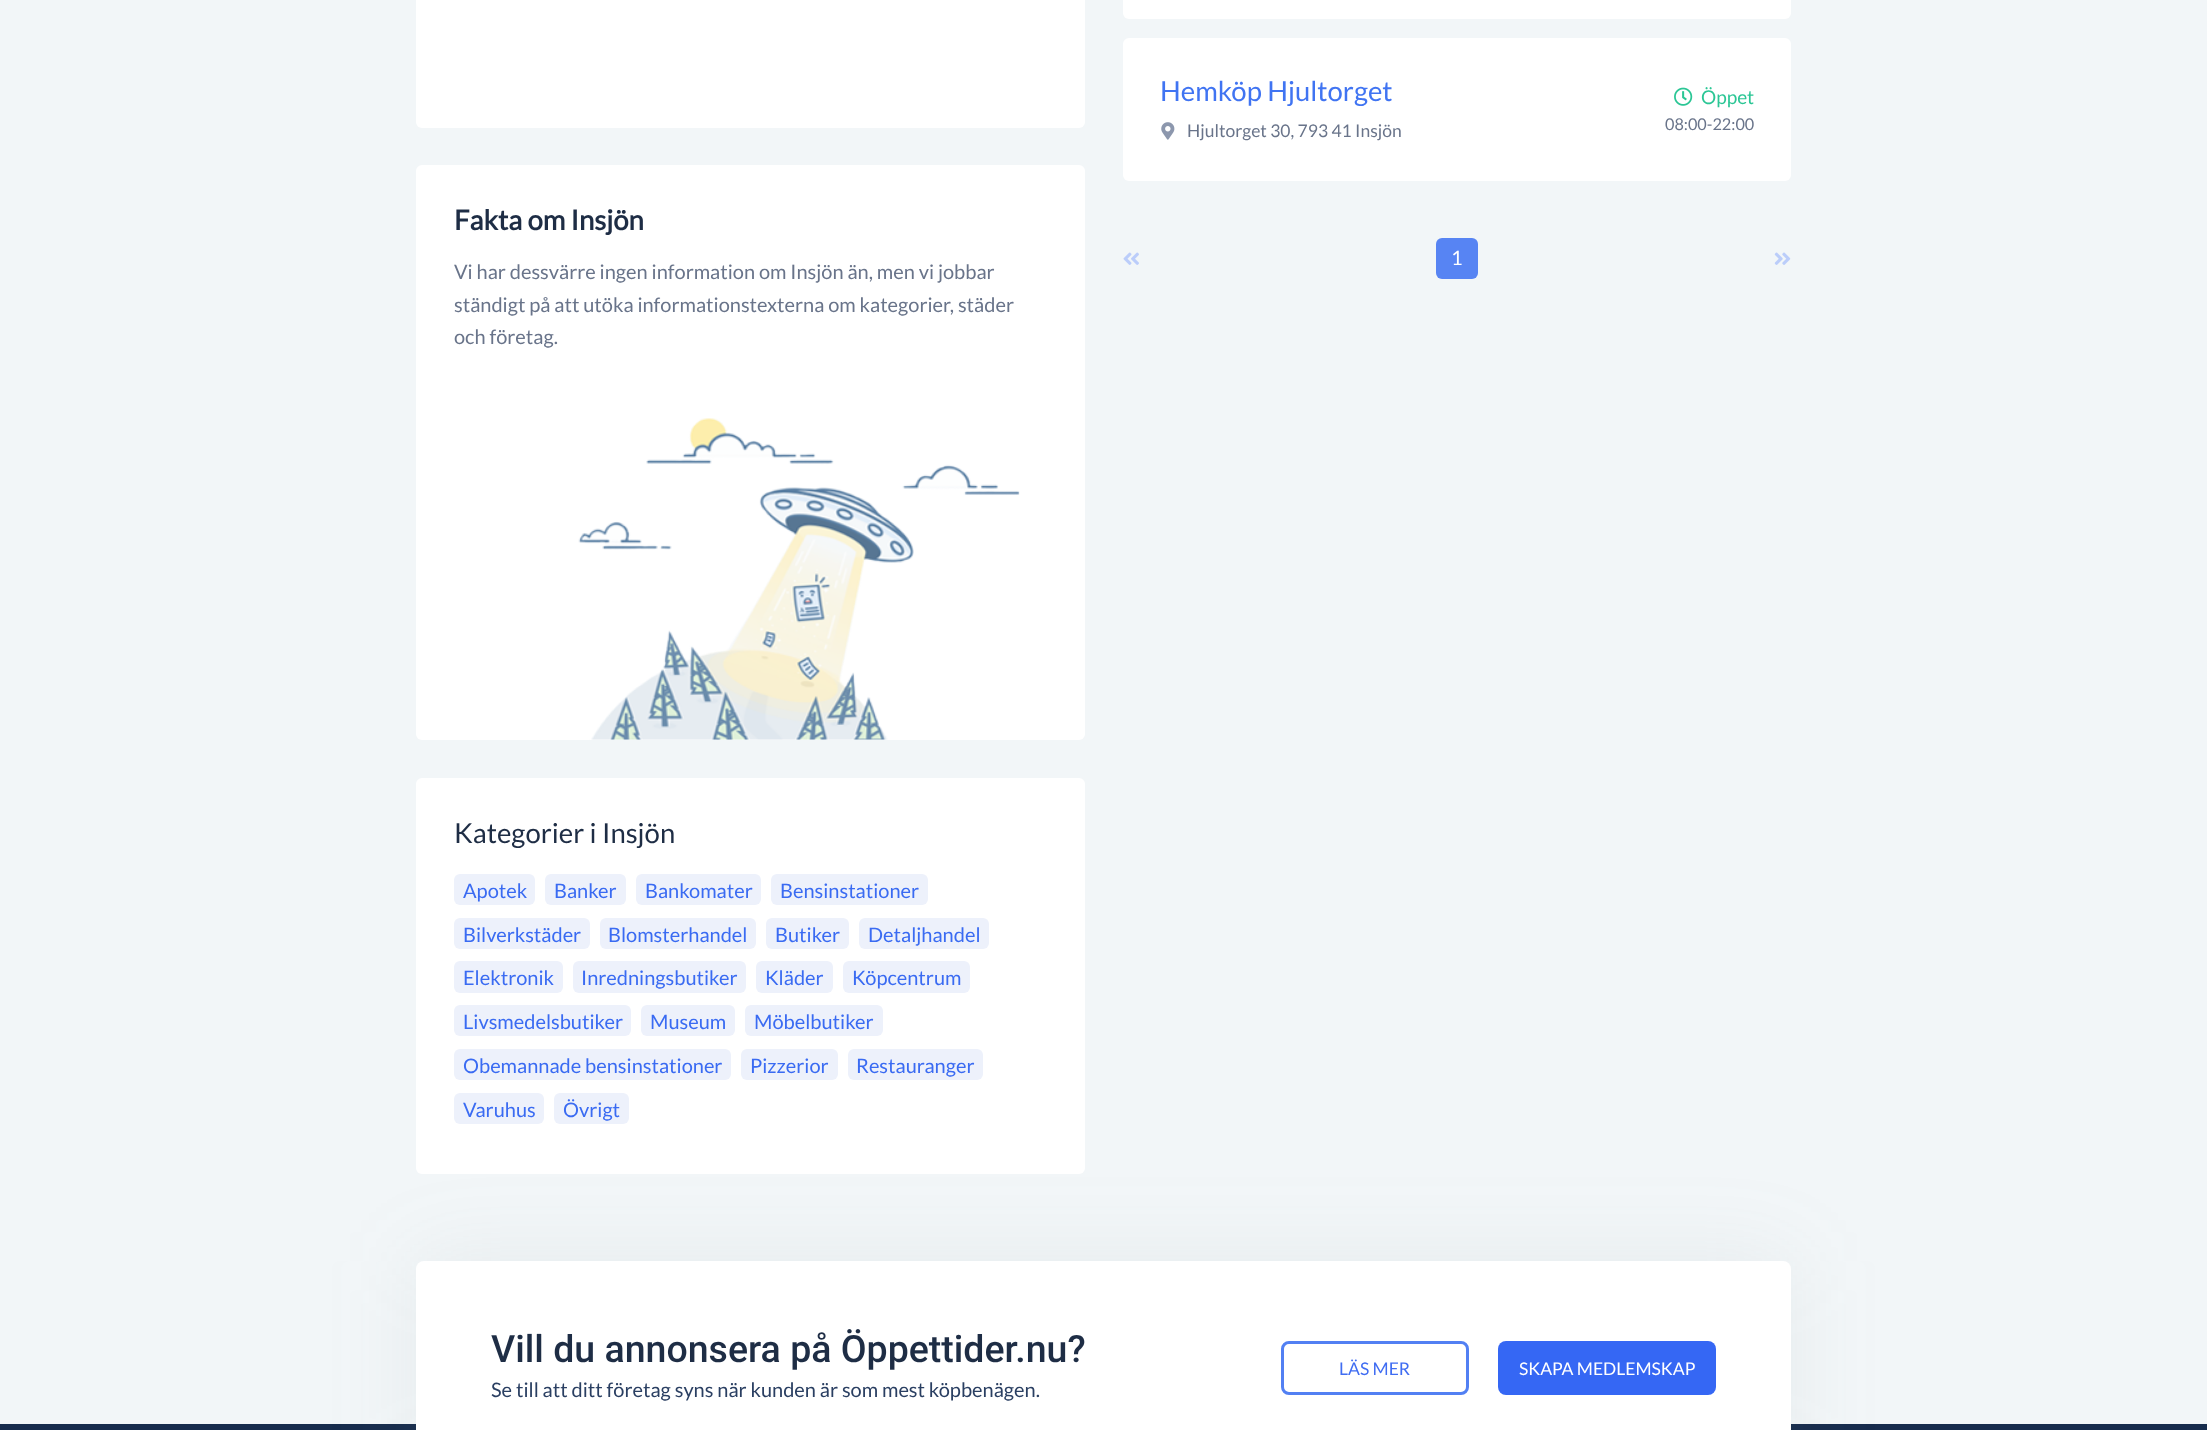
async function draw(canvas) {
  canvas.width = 2207;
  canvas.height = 1430;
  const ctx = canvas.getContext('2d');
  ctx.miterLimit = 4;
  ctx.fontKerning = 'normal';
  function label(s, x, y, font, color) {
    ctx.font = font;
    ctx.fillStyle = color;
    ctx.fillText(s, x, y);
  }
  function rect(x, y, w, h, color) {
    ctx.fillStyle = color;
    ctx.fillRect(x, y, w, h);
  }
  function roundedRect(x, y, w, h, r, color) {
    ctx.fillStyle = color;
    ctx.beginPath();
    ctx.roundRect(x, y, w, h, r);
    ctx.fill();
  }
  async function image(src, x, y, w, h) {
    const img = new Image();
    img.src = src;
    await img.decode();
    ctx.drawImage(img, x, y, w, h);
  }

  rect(0, 0, 2207, 1430, '#f2f6f8');
  roundedRect(1123, -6, 668, 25, 6, '#fff');
  roundedRect(1123, 38, 668, 143, 6, '#fff');
  label('Hemköp Hjultorget', 1160, 101, '27.5px Lato', '#4074f2');
  await image('assets/img1.png', 1161, 122, 14, 18);
  label('Hjultorget 30, 793 41 Insjön', 1187, 137, '17.5px Lato', '#69748a');
  await image('assets/img2.png', 1674, 87, 19, 19);
  label('Öppet', 1701, 104, '19px Lato', '#2bc695');
  label('08:00-22:00', 1665, 130, '16.25px Lato', '#69748a');
  await image('assets/img3.png', 1123, 252, 16, 13);
  roundedRect(1436, 238, 42, 41, 6, '#5784f3');
  label('1', 1451, 265, '20px Lato', '#fff');
  await image('assets/img4.png', 1774, 252, 17, 13);
  roundedRect(416, -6, 669, 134, 6, '#fff');
  roundedRect(416, 165, 669, 575, 6, '#fff');
  await image('assets/img5.png', 578, 418, 442, 322);
  label('Fakta om Insjön', 454, 230, 'bold 27.5px Lato', '#1e2d45');
  label('Vi har dessvärre ingen information om Insjön än, men vi jobbar', 454, 279, '20px Lato', '#69748a');
  label('ständigt på att utöka informationstexterna om kategorier, städer', 454, 312, '20px Lato', '#69748a');
  label('och företag.', 454, 344, '20px Lato', '#69748a');
  roundedRect(416, 778, 669, 396, 6, '#fff');
  label('Kategorier i Insjön', 454, 843, '27.5px Lato', '#1e2d45');
  roundedRect(454, 874, 81, 31, 6, '#edf1fb');
  label('Apotek', 463, 898, '20px Lato', '#3a6bf2');
  roundedRect(545, 874, 81, 31, 6, '#edf1fb');
  label('Banker', 554, 898, '20px Lato', '#3a6bf2');
  roundedRect(636, 874, 125, 31, 6, '#edf1fb');
  label('Bankomater', 645, 898, '20px Lato', '#3a6bf2');
  roundedRect(771, 874, 157, 31, 6, '#edf1fb');
  label('Bensinstationer', 780, 898, '20px Lato', '#3a6bf2');
  roundedRect(454, 918, 136, 31, 6, '#edf1fb');
  label('Bilverkstäder', 463, 942, '20px Lato', '#3a6bf2');
  roundedRect(600, 918, 156, 31, 6, '#edf1fb');
  label('Blomsterhandel', 608, 942, '20px Lato', '#3a6bf2');
  roundedRect(766, 918, 83, 31, 6, '#edf1fb');
  label('Butiker', 775, 942, '20px Lato', '#3a6bf2');
  roundedRect(859, 918, 130, 31, 6, '#edf1fb');
  label('Detaljhandel', 868, 942, '20px Lato', '#3a6bf2');
  roundedRect(454, 961, 109, 32, 6, '#edf1fb');
  label('Elektronik', 463, 985, '20px Lato', '#3a6bf2');
  roundedRect(573, 961, 173, 32, 6, '#edf1fb');
  label('Inredningsbutiker', 581, 985, '20px Lato', '#3a6bf2');
  roundedRect(756, 961, 77, 32, 6, '#edf1fb');
  label('Kläder', 765, 985, '20px Lato', '#3a6bf2');
  roundedRect(843, 961, 127, 32, 6, '#edf1fb');
  label('Köpcentrum', 852, 985, '20px Lato', '#3a6bf2');
  roundedRect(454, 1005, 177, 31, 6, '#edf1fb');
  label('Livsmedelsbutiker', 463, 1029, '20px Lato', '#3a6bf2');
  roundedRect(641, 1005, 94, 31, 6, '#edf1fb');
  label('Museum', 650, 1029, '20px Lato', '#3a6bf2');
  roundedRect(745, 1005, 138, 31, 6, '#edf1fb');
  label('Möbelbutiker', 754, 1029, '20px Lato', '#3a6bf2');
  roundedRect(454, 1049, 277, 31, 6, '#edf1fb');
  label('Obemannade bensinstationer', 463, 1073, '20px Lato', '#3a6bf2');
  roundedRect(741, 1049, 97, 31, 6, '#edf1fb');
  label('Pizzerior', 750, 1073, '20px Lato', '#3a6bf2');
  roundedRect(848, 1049, 135, 31, 6, '#edf1fb');
  label('Restauranger', 856, 1073, '20px Lato', '#3a6bf2');
  roundedRect(454, 1093, 90, 31, 6, '#edf1fb');
  label('Varuhus', 463, 1117, '20px Lato', '#3a6bf2');
  roundedRect(554, 1093, 75, 31, 6, '#edf1fb');
  label('Övrigt', 563, 1117, '20px Lato', '#3a6bf2');
  rect(0, 1424, 2207, 6, '#172c4d');
  ctx.fillStyle = '#82888e1a';
  ctx.filter = 'blur(44px)';
  ctx.beginPath();
  ctx.roundRect(416, 1261, 1375, 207, 8);
  ctx.fill();
  ctx.filter = 'none';
  roundedRect(416, 1261, 1375, 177, 8, '#fff');
  label('Vill du annonsera på Öppettider.nu?', 491, 1362, '500 37.5px Roboto', '#1e2d45');
  label('Se till att ditt företag syns när kunden är som mest köpbenägen.', 491, 1397, '20px Lato', '#2a3f62');
  ctx.beginPath();
  ctx.roundRect(1282.5, 1342.5, 185, 51, 6.5);
  ctx.strokeStyle = '#5280f3';
  ctx.lineWidth = 3;
  ctx.stroke();
  label('LÄS MER', 1339, 1375, '17.5px Lato', '#406df2');
  roundedRect(1498, 1341, 218, 54, 8, '#3567f4');
  label('SKAPA MEDLEMSKAP', 1519, 1375, '17.5px Lato', '#fff');
}

draw(document.querySelector('canvas'));
